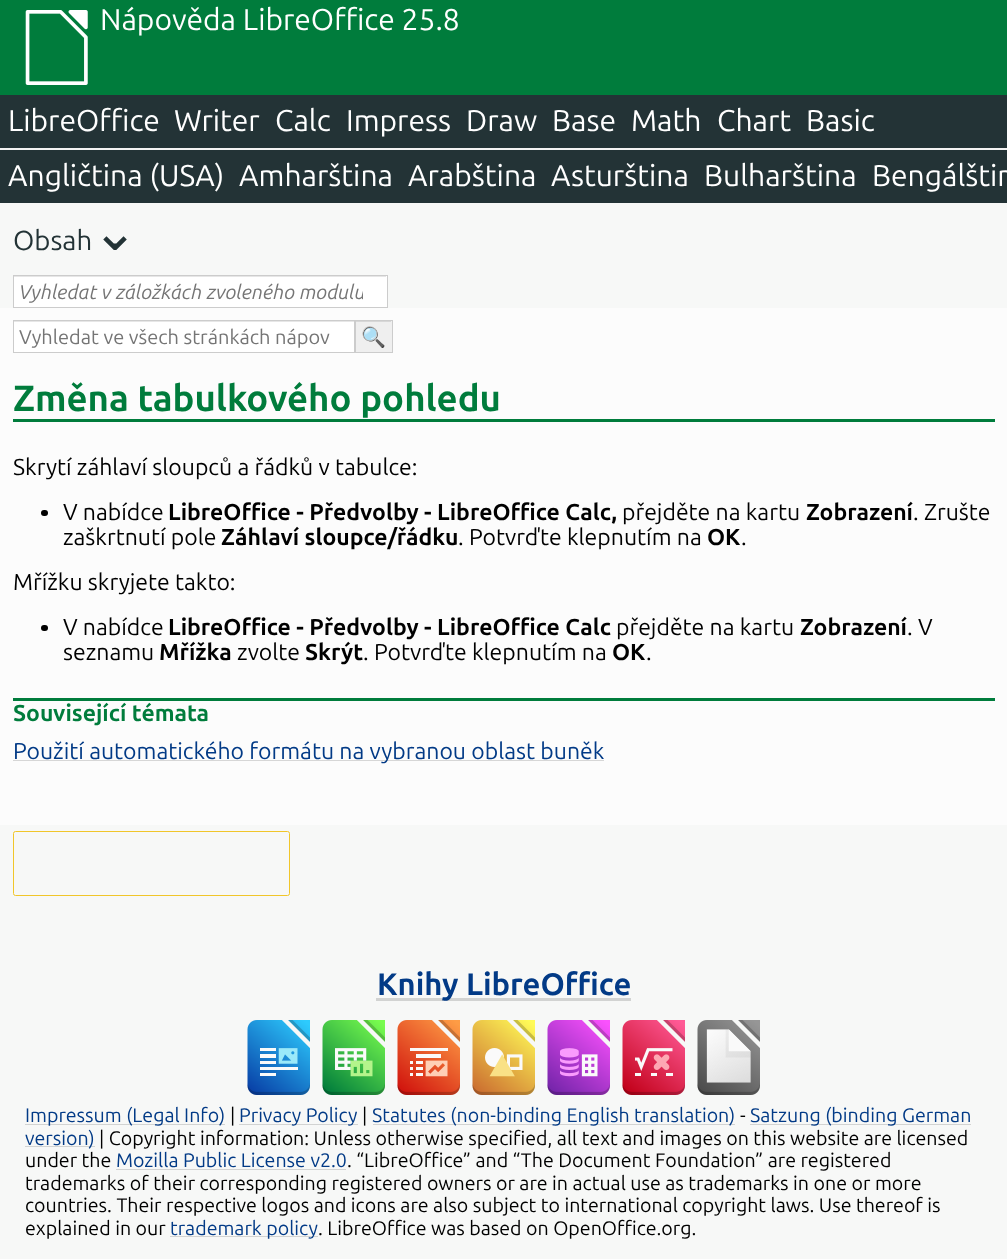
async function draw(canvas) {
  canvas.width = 1007;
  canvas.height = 1259;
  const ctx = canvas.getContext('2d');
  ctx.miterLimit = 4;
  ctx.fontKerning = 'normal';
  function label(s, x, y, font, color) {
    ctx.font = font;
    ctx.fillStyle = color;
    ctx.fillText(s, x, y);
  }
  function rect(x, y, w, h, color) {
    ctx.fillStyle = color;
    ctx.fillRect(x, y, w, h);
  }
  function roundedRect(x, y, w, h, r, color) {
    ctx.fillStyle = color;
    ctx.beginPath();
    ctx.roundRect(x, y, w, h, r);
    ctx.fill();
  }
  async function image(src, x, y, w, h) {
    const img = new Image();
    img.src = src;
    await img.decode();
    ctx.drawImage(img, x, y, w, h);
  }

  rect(0, 0, 1007, 1259, '#f7f8f7');
  rect(0, 0, 1007, 95, '#007c3c');
  await image('assets/img1.png', 25, 10, 63, 75);
  label('Nápověda LibreOffice 25.8', 100, 30, '30px Ubuntu', '#fff');
  rect(0, 95, 1007, 53, '#233336');
  rect(0, 148, 1007, 2, '#f3f3f3');
  label('LibreOffice', 8, 131, '30px Ubuntu', '#fff');
  label('Writer', 174, 131, '30px Ubuntu', '#fff');
  label('Calc', 275, 131, '30px Ubuntu', '#fff');
  label('Impress', 346, 131, '30px Ubuntu', '#fff');
  label('Draw', 466, 131, '30px Ubuntu', '#fff');
  label('Base', 552, 131, '30px Ubuntu', '#fff');
  label('Math', 631, 131, '30px Ubuntu', '#fff');
  label('Chart', 717, 131, '30px Ubuntu', '#fff');
  label('Basic', 806, 131, '30px Ubuntu', '#fff');
  rect(0, 150, 1007, 53, '#233336');
  label('Angličtina (USA)', 8, 186, '30px Ubuntu', '#fff');
  label('Amharština', 239, 186, '30px Ubuntu', '#fff');
  label('Arabština', 408, 186, '30px Ubuntu', '#fff');
  label('Asturština', 551, 186, '30px Ubuntu', '#fff');
  label('Bulharština', 704, 186, '30px Ubuntu', '#fff');
  label('Bengálštin', 872, 186, '30px Ubuntu', '#fff');
  label('Obsah', 13, 250, '27.5px Ubuntu', '#233336');
  label('⌄', 92, 250, '55px DejaVu Sans', '#233336');
  rect(14, 276, 373, 31, '#fff');
  rect(14, 276, 372, 1, '#e6e6e6');
  ctx.strokeStyle = '#ccc';
  ctx.strokeRect(13.5, 275.5, 374, 32);
  ctx.save();
  ctx.beginPath();
  ctx.rect(19, 280, 344, 23);
  ctx.clip();
  label('Vyhledat v záložkách zvoleného modulu', 19, 299, 'italic 20px Ubuntu', '#757575');
  ctx.restore();
  rect(0, 308, 1007, 517, '#fcfcfc');
  rect(14, 322, 340, 30, '#fff');
  rect(14, 321, 340, 1, '#e6e6e6');
  ctx.strokeRect(13.5, 320.5, 341, 32);
  label('Vyhledat ve všech stránkách nápov', 19, 344, '20px Ubuntu', '#757575');
  rect(356, 321, 36, 31, '#efefef');
  rect(356, 321, 35, 1, '#d7d7d7');
  ctx.strokeRect(355.5, 320.5, 37, 32);
  label('🔍', 361, 344, '20px Noto Color Emoji', '#000');
  rect(13, 419, 982, 3, '#007c3c');
  label('Změna tabulkového pohledu', 13, 411, 'bold 36.6px Ubuntu', '#007c3c');
  label('Skrytí záhlaví sloupců a řádků v tabulce:', 13, 475, '23px Ubuntu', '#000');
  roundedRect(41, 510, 7, 6, 3, '#000');
  label('V nabídce', 63, 520, '23px Ubuntu', '#000');
  label('LibreOffice - Předvolby - LibreOffice Calc,', 168, 520, 'bold 23px Ubuntu', '#000');
  label('přejděte na kartu', 622, 520, '23px Ubuntu', '#000');
  label('Zobrazení', 806, 520, 'bold 23px Ubuntu', '#000');
  label('. Zrušte', 913, 520, '23px Ubuntu', '#000');
  label('zaškrtnutí pole', 63, 545, '23px Ubuntu', '#000');
  label('Záhlaví sloupce/řádku', 221, 545, 'bold 23px Ubuntu', '#000');
  label('. Potvrďte klepnutím na', 458, 545, '23px Ubuntu', '#000');
  label('OK', 707, 545, 'bold 23px Ubuntu', '#000');
  label('.', 741, 545, '23px Ubuntu', '#000');
  label('Mřížku skryjete takto:', 13, 590, '23px Ubuntu', '#000');
  roundedRect(41, 625, 7, 6, 3, '#000');
  label('V nabídce', 63, 635, '23px Ubuntu', '#000');
  label('LibreOffice - Předvolby - LibreOffice Calc', 168, 635, 'bold 23px Ubuntu', '#000');
  label('přejděte na kartu', 616, 635, '23px Ubuntu', '#000');
  label('Zobrazení', 800, 635, 'bold 23px Ubuntu', '#000');
  label('. V', 907, 635, '23px Ubuntu', '#000');
  label('seznamu', 63, 660, '23px Ubuntu', '#000');
  label('Mřížka', 159, 660, 'bold 23px Ubuntu', '#000');
  label('zvolte', 237, 660, '23px Ubuntu', '#000');
  label('Skrýt', 305, 660, 'bold 23px Ubuntu', '#000');
  label('. Potvrďte klepnutím na', 363, 660, '23px Ubuntu', '#000');
  label('OK', 612, 660, 'bold 23px Ubuntu', '#000');
  label('.', 646, 660, '23px Ubuntu', '#000');
  rect(13, 698, 982, 3, '#007c3c');
  label('Související témata', 13, 721, 'bold 23px Ubuntu', '#007c3c');
  rect(13, 760, 591, 1, '#d6d6d6');
  label('Použití automatického formátu na vybranou oblast buněk', 13, 759, '23px Ubuntu', '#023a86');
  ctx.beginPath();
  ctx.roundRect(13.5, 831.5, 276, 64, 2);
  ctx.strokeStyle = '#f1c62a';
  ctx.stroke();
  rect(376, 998, 255, 3, '#d2d3d2');
  label('Knihy LibreOffice', 377, 995, 'bold 31px Ubuntu', '#023a86');
  await image('assets/img2.png', 247, 1020, 63, 75);
  await image('assets/img3.png', 322, 1020, 63, 75);
  await image('assets/img4.png', 397, 1020, 63, 75);
  await image('assets/img5.png', 472, 1020, 63, 75);
  await image('assets/img6.png', 547, 1020, 63, 75);
  await image('assets/img7.png', 622, 1020, 63, 75);
  await image('assets/img8.png', 697, 1020, 63, 75);
  rect(25, 1124, 200, 1, '#d2d3d2');
  label('Impressum (Legal Info)', 25, 1122, '19.6px Ubuntu', '#023a86');
  label('|', 230, 1122, '19.6px Ubuntu', '#000');
  rect(239, 1124, 119, 1, '#d2d3d2');
  label('Privacy Policy', 239, 1122, '19.6px Ubuntu', '#023a86');
  label('|', 362, 1122, '19.6px Ubuntu', '#000');
  rect(373, 1124, 362, 1, '#d2d3d2');
  label('Statutes (non-binding English translation)', 372, 1122, '19.6px Ubuntu', '#023a86');
  label('-', 740, 1122, '19.6px Ubuntu', '#000');
  rect(750, 1124, 221, 1, '#d2d3d2');
  label('Satzung (binding German', 750, 1122, '19.6px Ubuntu', '#023a86');
  rect(25, 1146, 70, 1, '#d2d3d2');
  label('version)', 25, 1145, '19.6px Ubuntu', '#023a86');
  label('| Copyright information: Unless otherwise specified, all text and images on this website are licensed', 99, 1145, '19.6px Ubuntu', '#000');
  label('under the', 25, 1167, '19.6px Ubuntu', '#000');
  label('Mozilla Public License v2.0', 116, 1167, '19.6px Ubuntu', '#023a86');
  rect(116, 1169, 230, 1, '#d2d3d2');
  label('. “LibreOffice” and “The Document Foundation” are registered', 347, 1167, '19.6px Ubuntu', '#000');
  label('trademarks of their corresponding registered owners or are in actual use as trademarks in one or more', 25, 1190, '19.6px Ubuntu', '#000');
  label('countries. Their respective logos and icons are also subject to international copyright laws. Use thereof is', 25, 1212, '19.6px Ubuntu', '#000');
  label('explained in our', 25, 1235, '19.6px Ubuntu', '#000');
  rect(170, 1236, 148, 1, '#d2d3d2');
  label('trademark policy', 170, 1235, '19.6px Ubuntu', '#023a86');
  label('. LibreOffice was based on OpenOffice.org.', 318, 1235, '19.6px Ubuntu', '#000');
}

draw(document.querySelector('canvas'));
